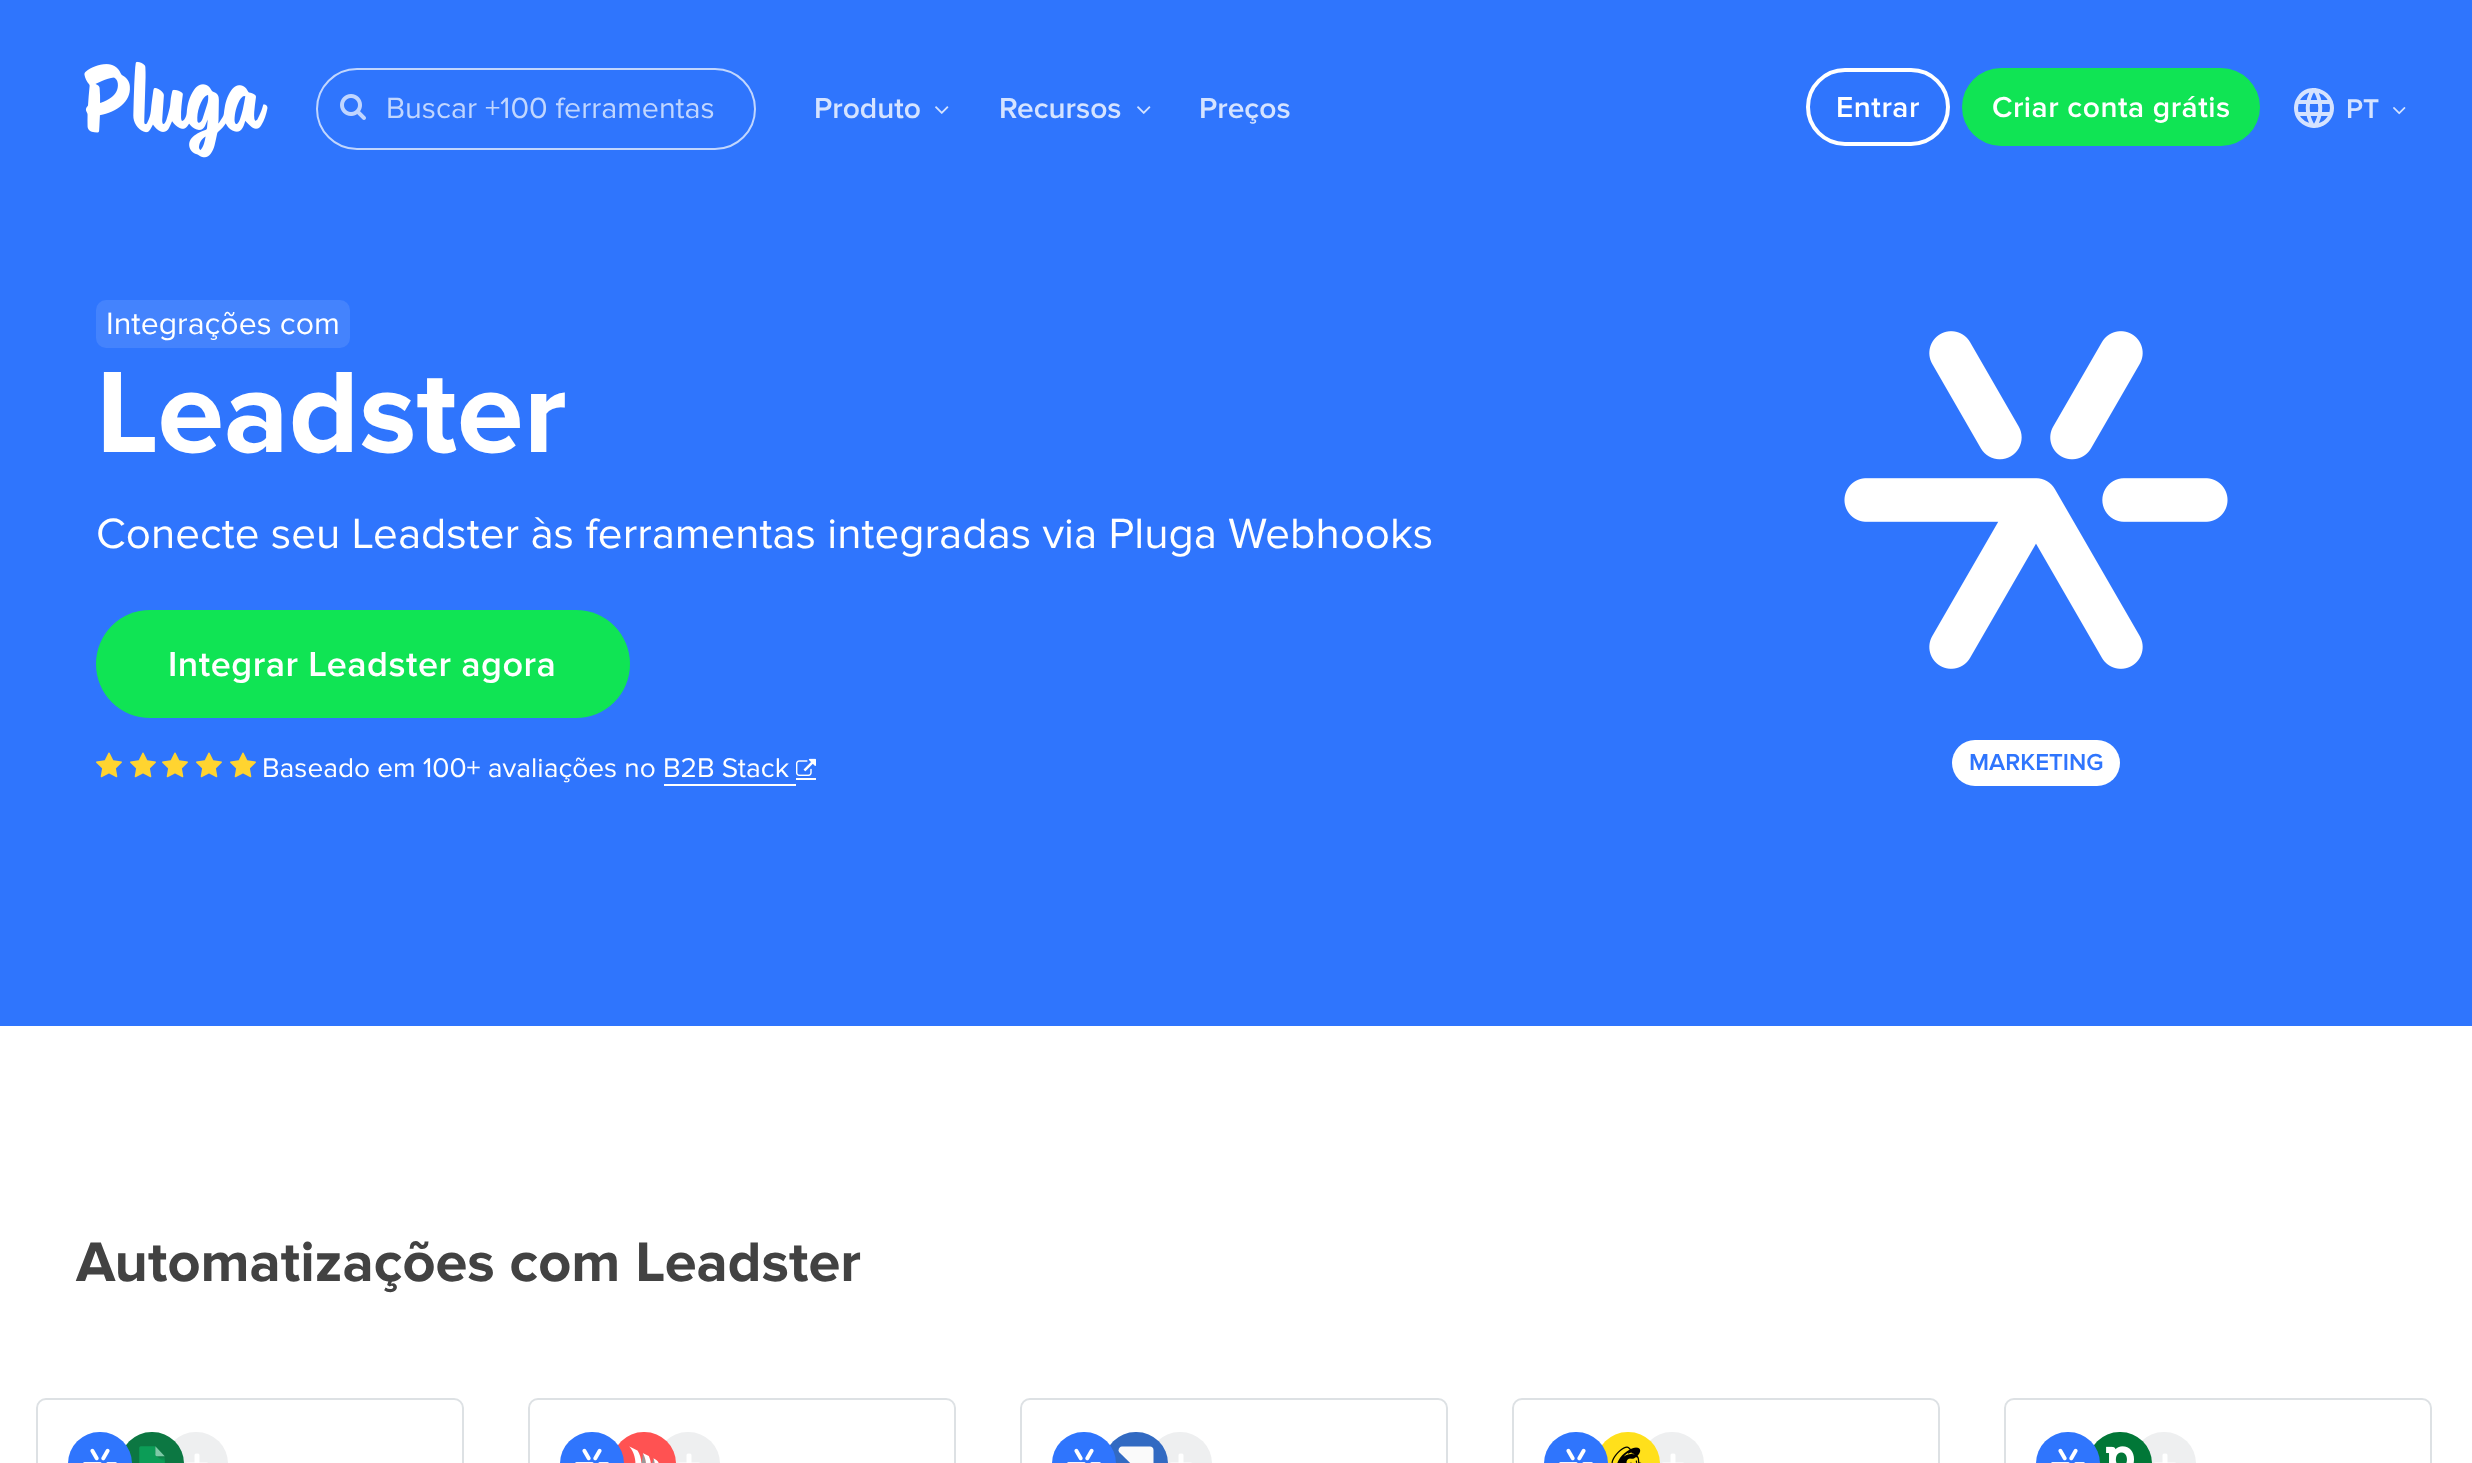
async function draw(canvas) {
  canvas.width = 2472;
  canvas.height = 1463;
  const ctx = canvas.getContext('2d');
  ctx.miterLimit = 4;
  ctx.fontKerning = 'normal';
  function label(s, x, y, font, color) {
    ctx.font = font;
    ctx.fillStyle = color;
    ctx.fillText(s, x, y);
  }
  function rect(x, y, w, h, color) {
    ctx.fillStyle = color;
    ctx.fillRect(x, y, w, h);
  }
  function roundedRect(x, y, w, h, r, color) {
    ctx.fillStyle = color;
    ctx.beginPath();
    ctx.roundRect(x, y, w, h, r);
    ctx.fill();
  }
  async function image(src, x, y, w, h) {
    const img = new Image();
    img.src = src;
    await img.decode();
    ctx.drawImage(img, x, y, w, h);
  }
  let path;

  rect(0, 0, 2472, 1463, '#fff');
  rect(0, 0, 2472, 1026, '#2f75fd');
  await image('assets/img1.png', 84, 61, 184, 97);
  ctx.beginPath();
  ctx.roundRect(317, 69, 438, 80, 40);
  ctx.strokeStyle = '#c1d6fe';
  ctx.lineWidth = 2;
  ctx.stroke();
  await image('assets/img2.png', 340, 94, 26, 26);
  label('Buscar +100 ferramentas', 386, 118, '30.4px Proxima Nova', '#c1d6fe');
  label('Produto', 814, 118, '600 30px Proxima Nova', '#d5e3ff');
  await image('assets/img3.png', 935, 106, 14, 8);
  label('Recursos', 999, 118, '600 30px Proxima Nova', '#d5e3ff');
  await image('assets/img3.png', 1137, 106, 14, 8);
  label('Preços', 1199, 118, '600 30px Proxima Nova', '#d5e3ff');
  ctx.beginPath();
  ctx.roundRect(1808, 70, 140, 74, 37);
  ctx.strokeStyle = '#fff';
  ctx.lineWidth = 4;
  ctx.stroke();
  ctx.letterSpacing = '0.5px';
  label('Entrar', 1836, 117, '600 30px Proxima Nova', '#fff');
  roundedRect(1962, 68, 298, 78, 39, '#10e454');
  label('Criar conta grátis', 1992, 117, '600 30px Proxima Nova', '#fff');
  path = new Path2D('M2297 102H2331M2297 114H2331M2313 90C2306 101 2306 115 2313 126M2315 90C2322 101 2322 115 2315 126M2296 108C2296 125.5 2319 132.5 2329 118C2331 115 2332 111.5 2332 108C2331.5 90.5 2309 83 2299 98C2297 101 2296 104.5 2296 108Z');
  ctx.strokeStyle = '#d5e3ff';
  ctx.lineCap = 'round';
  ctx.lineJoin = 'round';
  ctx.stroke(path);
  ctx.letterSpacing = '0px';
  label('PT', 2346, 118, '600 28px Proxima Nova', '#d5e3ff');
  await image('assets/img4.png', 2393, 107, 13, 8);
  roundedRect(96, 300, 254, 48, 10, '#4483fd');
  label('Integrações com', 106, 334, '32px Proxima Nova', '#fff');
  label('Leadster', 96, 452, 'bold 120px Proxima Nova', '#fff');
  label('Conecte seu Leadster às ferramentas integradas via Pluga Webhooks', 96, 548, '44px Proxima Nova', '#fff');
  roundedRect(96, 610, 534, 108, 54, '#10e454');
  ctx.letterSpacing = '0.5px';
  label('Integrar Leadster agora', 168, 676, '600 36px Proxima Nova', '#fff');
  await image('assets/img5.png', 96, 752, 26, 26);
  await image('assets/img5.png', 130, 752, 26, 26);
  await image('assets/img5.png', 162, 752, 26, 26);
  await image('assets/img5.png', 196, 752, 26, 26);
  await image('assets/img5.png', 230, 752, 26, 26);
  ctx.letterSpacing = '0px';
  label('Baseado em 100+ avaliações no B2B Stack', 262, 777, '28px Proxima Nova', '#fff');
  rect(664, 784, 132, 2, '#fff');
  rect(796, 778, 20, 2, '#fff');
  await image('assets/img6.png', 796, 758, 20, 18);
  await image('assets/img7.png', 1844, 331, 384, 338);
  roundedRect(1952, 740, 168, 46, 23, '#fff');
  label('MARKETING', 1969, 770, '600 24px Proxima Nova', '#2f75fd');
  label('Automatizações com Leadster', 76, 1281, 'bold 57.6px Proxima Nova', '#424242');
  ctx.beginPath();
  ctx.roundRect(37, 1399, 426, 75, 9);
  ctx.strokeStyle = '#dde1e4';
  ctx.lineWidth = 2;
  ctx.lineJoin = 'miter';
  ctx.stroke();
  roundedRect(164, 1432, 64, 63, 32, '#eeeff0');
  roundedRect(120, 1432, 64, 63, 32, '#0c7742');
  roundedRect(68, 1432, 64, 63, 32, '#2f75fd');
  await image('assets/img8.png', 83, 1448, 34, 15);
  await image('assets/img9.png', 139, 1446, 26, 17);
  await image('assets/img10.png', 186, 1453, 22, 10);
  ctx.beginPath();
  ctx.roundRect(529, 1399, 426, 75, 9);
  ctx.stroke();
  roundedRect(656, 1432, 64, 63, 32, '#eeeff0');
  roundedRect(612, 1432, 64, 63, 32, '#ff5252');
  roundedRect(560, 1432, 64, 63, 32, '#2f75fd');
  await image('assets/img8.png', 575, 1448, 34, 15);
  await image('assets/img11.png', 629, 1446, 30, 17);
  await image('assets/img10.png', 678, 1453, 22, 10);
  ctx.beginPath();
  ctx.roundRect(1021, 1399, 426, 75, 9);
  ctx.stroke();
  roundedRect(1148, 1432, 64, 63, 32, '#eeeff0');
  roundedRect(1104, 1432, 64, 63, 32, '#326ac2');
  roundedRect(1052, 1432, 64, 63, 32, '#2f75fd');
  await image('assets/img8.png', 1067, 1448, 34, 15);
  ctx.fillStyle = '#fafafa';
  path = new Path2D('M1150 1446.5H1122C1119 1446.5 1117.5 1450.5 1119.5 1452.5L1148.5 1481C1150.5 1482 1153.5 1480.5 1153.5 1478V1450C1153.5 1448 1152 1446.5 1150 1446.5Z');
  ctx.fill(path);
  await image('assets/img10.png', 1170, 1453, 22, 10);
  ctx.beginPath();
  ctx.roundRect(1513, 1399, 426, 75, 9);
  ctx.stroke();
  roundedRect(1640, 1432, 64, 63, 32, '#eeeff0');
  roundedRect(1596, 1432, 64, 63, 32, '#ffe01b');
  roundedRect(1544, 1432, 64, 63, 32, '#2f75fd');
  await image('assets/img8.png', 1559, 1448, 34, 15);
  await image('assets/img12.png', 1611, 1446, 31, 17);
  await image('assets/img10.png', 1662, 1453, 22, 10);
  ctx.beginPath();
  ctx.roundRect(2005, 1399, 426, 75, 9);
  ctx.stroke();
  roundedRect(2132, 1432, 64, 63, 32, '#eeeff0');
  roundedRect(2088, 1432, 64, 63, 32, '#017737');
  roundedRect(2036, 1432, 64, 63, 32, '#2f75fd');
  await image('assets/img8.png', 2051, 1448, 34, 15);
  await image('assets/img13.png', 2106, 1446, 28, 17);
  await image('assets/img10.png', 2154, 1453, 22, 10);
}

draw(document.querySelector('canvas'));
